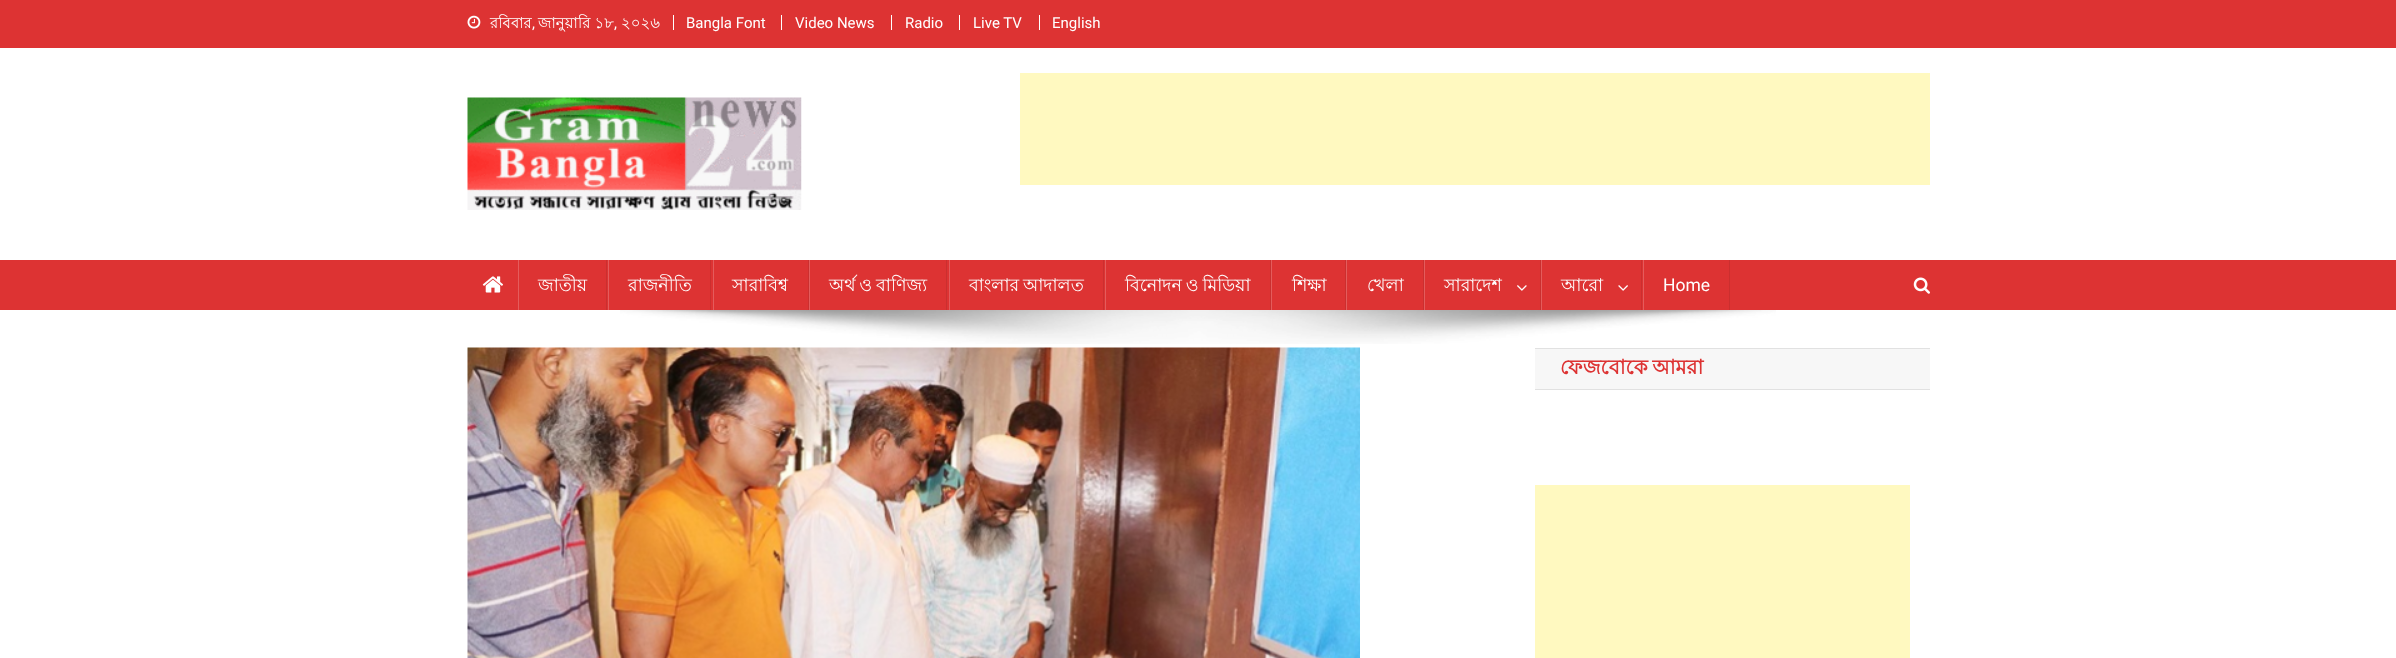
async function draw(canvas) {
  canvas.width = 2396;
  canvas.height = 658;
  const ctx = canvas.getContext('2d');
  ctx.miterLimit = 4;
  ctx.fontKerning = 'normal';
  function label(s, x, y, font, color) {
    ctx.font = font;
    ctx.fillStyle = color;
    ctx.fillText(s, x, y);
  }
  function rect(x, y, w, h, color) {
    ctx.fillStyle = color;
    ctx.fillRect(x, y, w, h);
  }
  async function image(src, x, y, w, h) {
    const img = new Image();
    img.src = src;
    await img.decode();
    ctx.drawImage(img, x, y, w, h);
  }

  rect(0, 0, 2396, 658, '#fff');
  rect(0, 0, 2396, 48, '#d33');
  await image('assets/img1.png', 467, 15, 14, 14);
  label('রবিবার', 490, 28, '15px Lohit Bengali', '#fff');
  label(',', 532, 28, '15px Roboto', '#fff');
  label('জানুয়ারি ১৮', 538, 28, '15px Lohit Bengali', '#fff');
  label(',', 614, 28, '15px Roboto', '#fff');
  label('২০২৬', 621, 28, '15px Lohit Bengali', '#fff');
  rect(673, 15, 1, 15, '#fff');
  label('Bangla Font', 686, 28, '15px Roboto', '#fff');
  rect(781, 15, 1, 15, '#fff');
  label('Video News', 795, 28, '15px Roboto', '#fff');
  rect(891, 15, 1, 15, '#fff');
  label('Radio', 905, 28, '15px Roboto', '#fff');
  rect(959, 15, 1, 15, '#fff');
  label('Live TV', 973, 28, '15px Roboto', '#fff');
  rect(1039, 15, 1, 15, '#fff');
  label('English', 1052, 28, '15px Roboto', '#fff');
  await image('assets/img2.png', 467, 97, 335, 113);
  rect(1020, 73, 910, 112, '#fff9c0');
  rect(0, 260, 2396, 50, '#d33');
  await image('assets/img3.png', 482, 276, 21, 17);
  rect(606, 260, 1, 50, '#cb2f2f');
  rect(518, 260, 1, 50, '#e45c5c');
  label('জাতীয়', 538, 291, '17.5px Lohit Bengali', '#fff');
  rect(710, 260, 1, 50, '#cb2f2f');
  rect(608, 260, 1, 50, '#e45c5c');
  label('রাজনীতি', 628, 291, '17.5px Lohit Bengali', '#fff');
  rect(808, 260, 1, 50, '#cb2f2f');
  rect(713, 260, 1, 50, '#e45c5c');
  label('সারাবিশ্ব', 732, 291, '17.5px Lohit Bengali', '#fff');
  rect(946, 260, 1, 50, '#cb2f2f');
  rect(809, 260, 1, 50, '#e45c5c');
  ctx.wordSpacing = '-1px';
  label('অর্থ ও বাণিজ্য', 829, 291, '17.5px Lohit Bengali', '#fff');
  rect(1103, 260, 1, 50, '#cb2f2f');
  rect(949, 260, 1, 50, '#e45c5c');
  label('বাংলার আদালত', 969, 291, '17.5px Lohit Bengali', '#fff');
  rect(1270, 260, 1, 50, '#cb2f2f');
  rect(1105, 260, 1, 50, '#e45c5c');
  label('বিনোদন ও মিডিয়া', 1125, 291, '17.5px Lohit Bengali', '#fff');
  rect(1345, 260, 1, 50, '#cb2f2f');
  rect(1271, 260, 1, 50, '#e45c5c');
  ctx.wordSpacing = '0px';
  label('শিক্ষা', 1292, 291, '17.5px Lohit Bengali', '#fff');
  rect(1423, 260, 1, 50, '#cb2f2f');
  rect(1346, 260, 1, 50, '#e45c5c');
  label('খেলা', 1367, 291, '17.5px Lohit Bengali', '#fff');
  rect(1540, 260, 1, 50, '#cb2f2f');
  rect(1424, 260, 1, 50, '#e45c5c');
  label('সারাদেশ', 1444, 291, '17.5px Lohit Bengali', '#fff');
  await image('assets/img4.png', 1517, 285, 10, 6);
  rect(1641, 260, 1, 50, '#cb2f2f');
  rect(1541, 260, 1, 50, '#e45c5c');
  label('আরো', 1561, 291, '17.5px Lohit Bengali', '#fff');
  await image('assets/img5.png', 1618, 285, 10, 6);
  rect(1729, 260, 1, 50, '#cb2f2f');
  rect(1643, 260, 1, 50, '#e45c5c');
  label('Home', 1663, 291, '17.5px Roboto', '#fff');
  await image('assets/img6.png', 1913, 277, 17, 17);
  await image('assets/img7.png', 620, 310, 1156, 34);
  await image('assets/img8.png', 467, 347, 893, 311);
  rect(1535, 349, 395, 40, '#f7f7f7');
  rect(1535, 348, 395, 1, '#e1e1e1');
  rect(1535, 389, 395, 1, '#e1e1e1');
  ctx.wordSpacing = '-1px';
  label('ফেজবোকে আমরা', 1560, 374, 'bold 20px Lohit Bengali', '#d33');
  rect(1535, 485, 375, 173, '#fff9c0');
}

draw(document.querySelector('canvas'));
